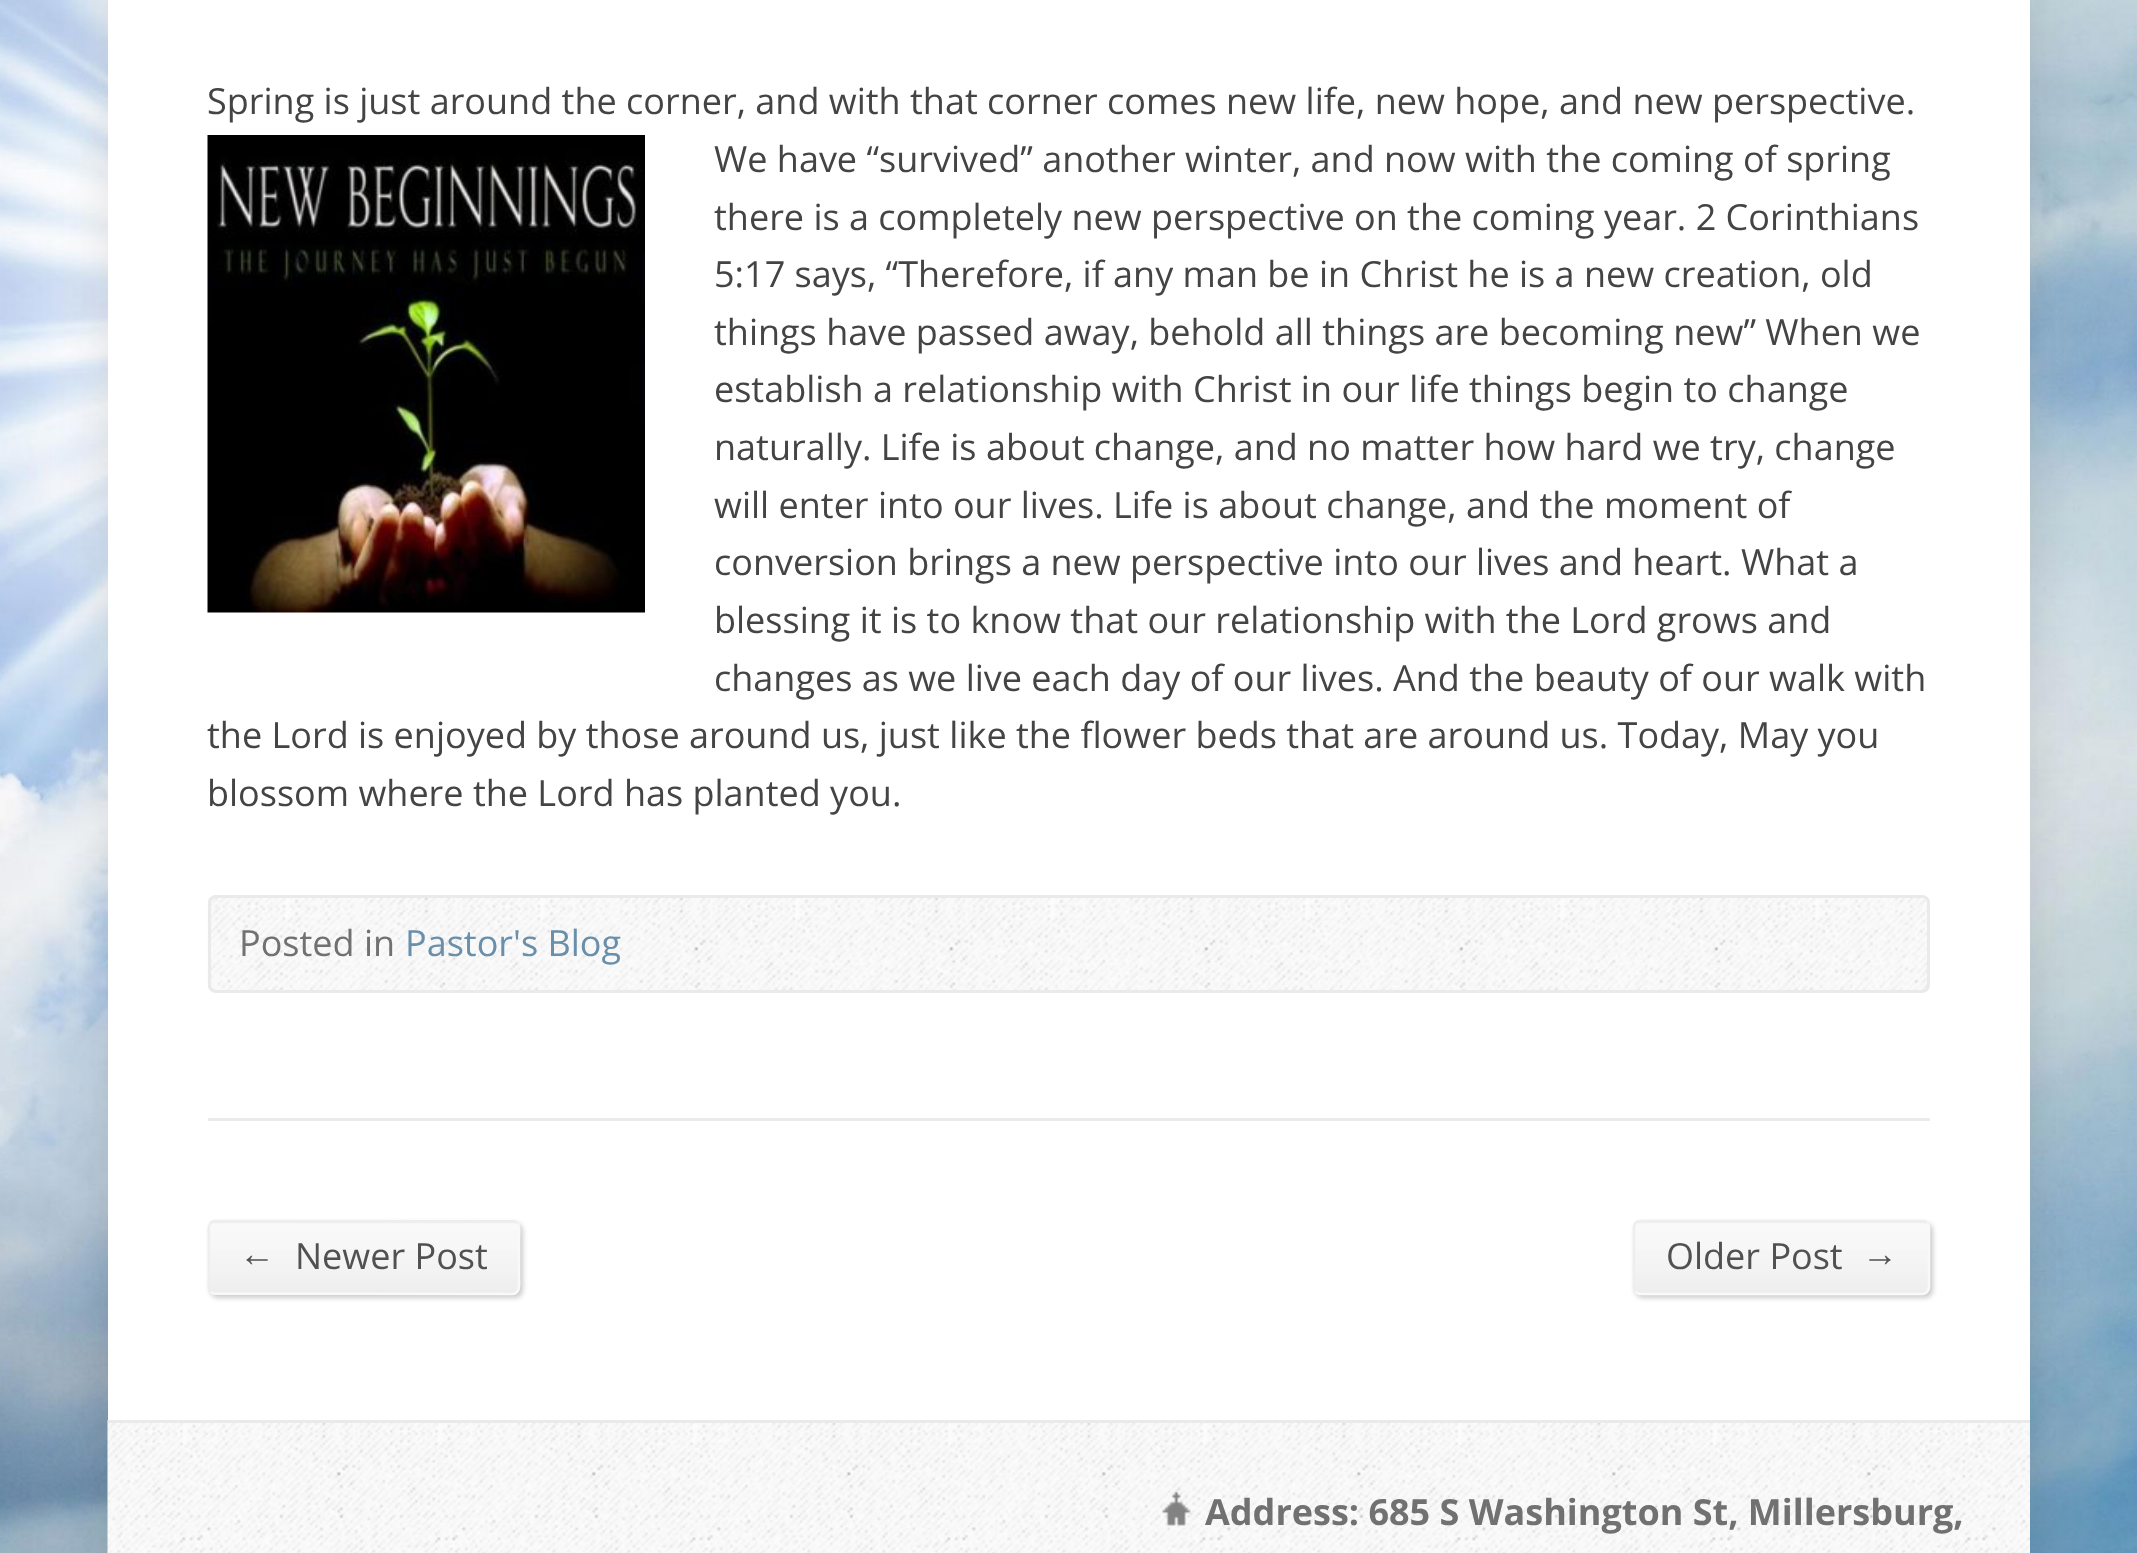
async function draw(canvas) {
  canvas.width = 2137;
  canvas.height = 1553;
  const ctx = canvas.getContext('2d');
  ctx.miterLimit = 4;
  ctx.fontKerning = 'normal';
  function label(s, x, y, font, color) {
    ctx.font = font;
    ctx.fillStyle = color;
    ctx.fillText(s, x, y);
  }
  function rect(x, y, w, h, color) {
    ctx.fillStyle = color;
    ctx.fillRect(x, y, w, h);
  }
  function roundedRect(x, y, w, h, r, color) {
    ctx.fillStyle = color;
    ctx.beginPath();
    ctx.roundRect(x, y, w, h, r);
    ctx.fill();
  }
  async function image(src, x, y, w, h) {
    const img = new Image();
    img.src = src;
    await img.decode();
    ctx.drawImage(img, x, y, w, h);
  }
  let path;

  rect(0, 0, 2137, 1553, '#fff');
  await image('assets/img1.png', 0, 0, 2137, 1553);
  ctx.fillStyle = '#0000001f';
  ctx.filter = 'blur(25px)';
  ctx.beginPath();
  ctx.roundRect(108, -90, 1922, 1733, 15);
  ctx.fill();
  ctx.filter = 'none';
  rect(108, 0, 1922, 1420, '#fff');
  label('Spring is just around the corner, and with that corner comes new life, new hope, and new perspective.', 207, 114, '36px Open Sans', '#444');
  await image('assets/img2.png', 207, 135, 438, 478);
  label('We have “survived” another winter, and now', 714, 172, '36px Open Sans', '#444');
  label('with the coming of spring', 1465, 172, '36px Open Sans', '#444');
  label('there is a completely new perspective on the coming year. 2 Corinthians', 714, 230, '36px Open Sans', '#444');
  label('5:17 says, “Therefore, if any man be in Christ he is a new creation, old', 714, 287, '36px Open Sans', '#444');
  label('things have passed away, behold all things are becoming new” When we', 714, 345, '36px Open Sans', '#444');
  label('establish a relationship with Christ in our life things begin to change', 714, 402, '36px Open Sans', '#444');
  label('naturally. Life is about change, and no matter how hard we try, change', 714, 460, '36px Open Sans', '#444');
  label('will enter into our lives. Life is about change, and the moment of', 714, 518, '36px Open Sans', '#444');
  label('conversion brings a new perspective into our lives and heart. What a', 714, 575, '36px Open Sans', '#444');
  label('blessing it is to know that our relationship with the Lord grows and', 714, 633, '36px Open Sans', '#444');
  label('changes as we live each day of our lives. And the beauty of our walk with', 714, 691, '36px Open Sans', '#444');
  label('the Lord is enjoyed by those around us, just like the flower beds that are around us. Today, May you', 207, 748, '36px Open Sans', '#444');
  label('blossom where the Lord has planted you.', 207, 806, '36px Open Sans', '#444');
  await image('assets/img3.png', 207, 895, 1723, 98);
  ctx.beginPath();
  ctx.roundRect(209.5, 896.5, 1719, 95, 6.5);
  ctx.strokeStyle = '#eaeaea';
  ctx.lineWidth = 3;
  ctx.stroke();
  label('Posted in', 239, 956, '36px Open Sans', '#717171');
  label('Pastor\'s Blog', 405, 956, '36px Open Sans', '#6a8fab');
  rect(208, 1118, 1722, 3, '#eaeaea');
  ctx.fillStyle = '#00000033';
  ctx.filter = 'blur(2.5px)';
  ctx.beginPath();
  ctx.roundRect(210, 1223, 313, 75, 8);
  ctx.fill();
  ctx.filter = 'none';
  roundedRect(208, 1220, 312, 75, 8, '#f9f9f9');
  await image('assets/img4.png', 208, 1220, 312, 75);
  path = new Path2D('M517 1223C520.5 1226.5 519 1234.5 519 1237.5V1277.5C519 1282 521 1293.5 512.5 1294L213 1293.5L210.5 1292');
  ctx.strokeStyle = '#f9f9f9';
  ctx.lineWidth = 2.5;
  ctx.stroke(path);
  path = new Path2D('M210.5 1292C207 1288.5 209 1280.5 209 1277.5V1237.5C209 1233 206.5 1221.5 215 1221L514.5 1221.5L517 1223');
  ctx.strokeStyle = '#eee';
  ctx.stroke(path);
  label('←', 239, 1266, '36px Liberation Sans', '#515151');
  label('Newer Post', 295, 1269, '36px Open Sans', '#515151');
  ctx.fillStyle = '#00000033';
  ctx.filter = 'blur(2.5px)';
  ctx.beginPath();
  ctx.roundRect(1635, 1223, 298, 75, 8);
  ctx.fill();
  ctx.filter = 'none';
  roundedRect(1633, 1220, 297, 75, 8, '#f9f9f9');
  await image('assets/img5.png', 1633, 1220, 297, 75);
  path = new Path2D('M1927 1223C1928 1224.5 1929 1226 1929 1227.5V1287.5C1929 1289 1928 1290.5 1927 1292C1925.5 1293 1924 1294 1922.5 1294H1640C1638.5 1294 1637 1293 1635.5 1292');
  ctx.strokeStyle = '#f9f9f9';
  ctx.stroke(path);
  path = new Path2D('M1635.5 1292C1634.5 1290.5 1634 1289 1634 1287.5V1227.5C1634 1226 1634.5 1224.5 1635.5 1223C1637 1222 1638.5 1221 1640 1221H1922.5C1924 1221 1925.5 1222 1927 1223');
  ctx.strokeStyle = '#eee';
  ctx.stroke(path);
  label('Older Post', 1666, 1269, '36px Open Sans', '#515151');
  label('→', 1862, 1266, '36px Liberation Sans', '#515151');
  await image('assets/img6.png', 107, 1420, 1923, 133);
  rect(108, 1420, 1922, 3, '#eaeaea');
  await image('assets/img7.png', 1161, 1492, 30, 34);
  label('Address: 685 S Washington St, Millersburg,', 1205, 1525, 'bold 36px Open Sans', '#717171');
}

draw(document.querySelector('canvas'));
